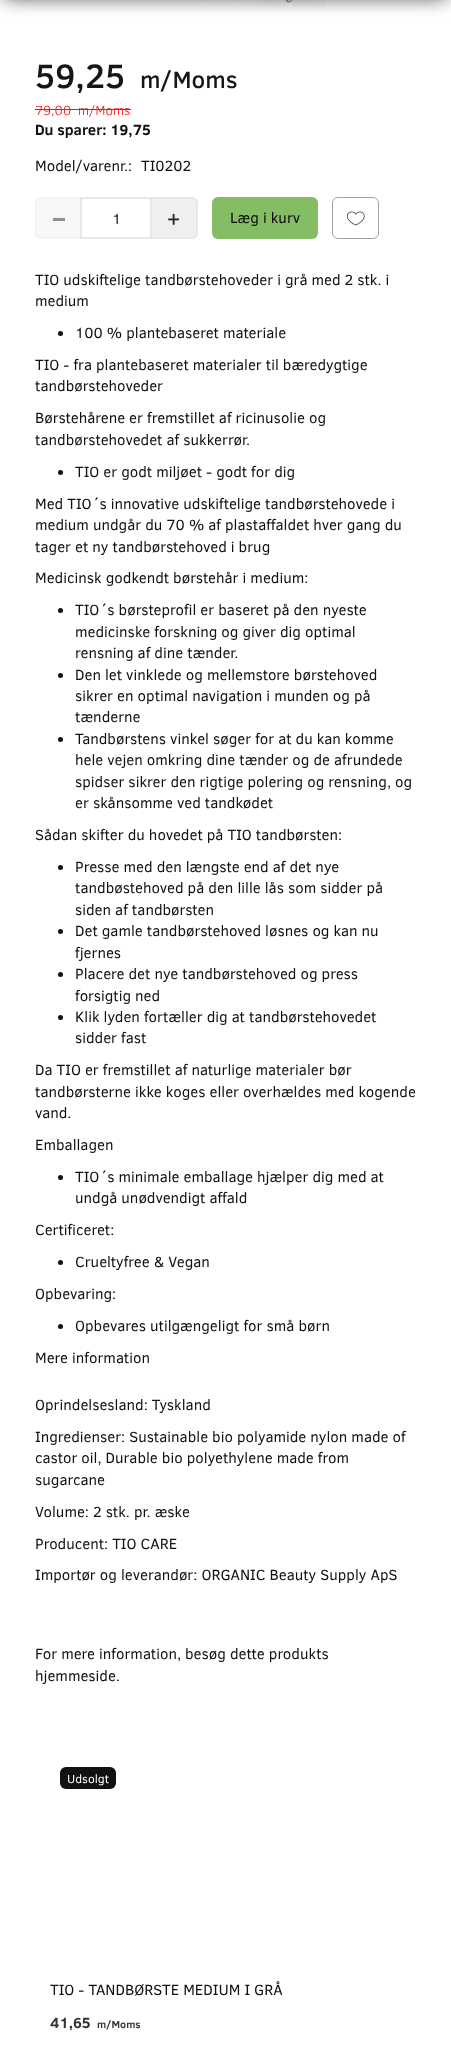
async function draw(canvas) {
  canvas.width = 451;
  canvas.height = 2063;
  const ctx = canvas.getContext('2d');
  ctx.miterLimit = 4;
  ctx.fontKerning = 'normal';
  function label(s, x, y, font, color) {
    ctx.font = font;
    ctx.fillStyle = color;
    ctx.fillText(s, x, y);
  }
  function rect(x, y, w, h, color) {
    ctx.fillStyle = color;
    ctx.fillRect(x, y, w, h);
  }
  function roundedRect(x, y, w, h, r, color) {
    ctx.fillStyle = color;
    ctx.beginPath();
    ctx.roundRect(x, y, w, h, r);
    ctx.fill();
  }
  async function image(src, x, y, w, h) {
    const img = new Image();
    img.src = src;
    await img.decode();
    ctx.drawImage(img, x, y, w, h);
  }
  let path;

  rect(0, 0, 451, 2063, '#fff');
  rect(201, 0, 1, 1, '#fafaf8');
  await image('assets/img1.png', 231, 0, 95, 7);
  ctx.fillStyle = '#707070';
  ctx.filter = 'blur(10px)';
  ctx.beginPath();
  ctx.rect(5, -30, 441, 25);
  ctx.fill();
  ctx.filter = 'none';
  ctx.filter = 'blur(10px)';
  ctx.beginPath();
  ctx.rect(5, -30, 441, 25);
  ctx.fill();
  ctx.filter = 'none';
  label('59,25', 35, 88, '500 34.5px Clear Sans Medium', '#171616');
  label('m/Moms', 140, 88, '500 24px Clear Sans Medium', '#171616');
  label('79,00', 35, 115, '300 13.5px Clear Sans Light', '#f21111');
  rect(35, 109, 40, 1, '#f21111');
  label('m/Moms', 78, 115, '300 13.5px Clear Sans Light', '#f21111');
  rect(75, 109, 56, 1, '#f21111');
  label('Du sparer: 19,75', 35, 135, 'bold 15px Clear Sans', '#111112');
  label('Model/varenr.:', 35, 171, '15px Clear Sans', '#111112');
  label('TI0202', 141, 171, '15px Clear Sans', '#111112');
  ctx.fillStyle = '#f7f7f7';
  ctx.beginPath();
  ctx.roundRect(35, 197, 45, 42, [6, 0, 0, 6]);
  ctx.fill();
  ctx.fillStyle = '#f3f3f3';
  path = new Path2D('M41 197H80V239H41C38 239 35 236 35 233V203C35 200 38 197 41 197ZM41 199H80V237H41C39 237 37 235 37 233V203C37 201 39 199 41 199Z');
  ctx.fill(path, 'evenodd');
  rect(53, 218, 12, 3, '#909091');
  ctx.strokeStyle = '#e7e7e7';
  ctx.lineWidth = 2;
  ctx.strokeRect(81, 198, 70, 40);
  label('1', 112, 224, '15px Clear Sans', '#28282a');
  ctx.fillStyle = '#efefef';
  ctx.beginPath();
  ctx.roundRect(152, 197, 46, 42, [0, 6, 6, 0]);
  ctx.fill();
  ctx.fillStyle = '#e7e7e7';
  path = new Path2D('M152 197H192C195 197 198 200 198 203V233C198 236 195 239 192 239H152ZM152 199H192C194 199 196 201 196 203V233C196 235 194 237 192 237H152Z');
  ctx.fill(path, 'evenodd');
  await image('assets/img2.png', 168, 213, 12, 12);
  roundedRect(212, 197, 106, 42, 6, '#85bd64');
  label('Læg i kurv', 230, 223, '15px Clear Sans', '#0a0a0a');
  ctx.beginPath();
  ctx.roundRect(332.5, 197.5, 46, 41, 5.5);
  ctx.strokeStyle = '#a0a0a0';
  ctx.lineWidth = 1;
  ctx.stroke();
  await image('assets/img3.png', 347, 211, 18, 15);
  label('TIO udskiftelige tandbørstehoveder i grå med 2 stk. i', 35, 285, '15px Clear Sans', '#111112');
  label('medium', 35, 306, '15px Clear Sans', '#111112');
  ctx.beginPath();
  ctx.arc(60.5, 333.5, 2.5, 0, 2 * Math.PI);
  ctx.fill();
  label('100 % plantebaseret materiale', 75, 338, '15px Clear Sans', '#111112');
  label('TIO - fra plantebaseret materialer til bæredygtige', 35, 370, '15px Clear Sans', '#111112');
  label('tandbørstehoveder', 35, 391, '15px Clear Sans', '#111112');
  label('Børstehårene er fremstillet af ricinusolie og', 35, 423, '15px Clear Sans', '#111112');
  label('tandbørstehovedet af sukkerrør.', 35, 445, '15px Clear Sans', '#111112');
  ctx.beginPath();
  ctx.arc(60.5, 472.5, 2.5, 0, 2 * Math.PI);
  ctx.fill();
  label('TIO er godt miljøet - godt for dig', 75, 477, '15px Clear Sans', '#111112');
  label('Med TIO´s innovative udskiftelige tandbørstehovede i', 35, 509, '15px Clear Sans', '#111112');
  label('medium undgår du 70 % af plastaffaldet hver gang du', 35, 530, '15px Clear Sans', '#111112');
  label('tager et ny tandbørstehoved i brug', 35, 552, '15px Clear Sans', '#111112');
  label('Medicinsk godkendt børstehår i medium:', 35, 583, '15px Clear Sans', '#111112');
  ctx.beginPath();
  ctx.arc(60.5, 610.5, 2.5, 0, 2 * Math.PI);
  ctx.fill();
  label('TIO´s børsteprofil er baseret på den nyeste', 75, 615, '15px Clear Sans', '#111112');
  label('medicinske forskning og giver dig optimal', 75, 637, '15px Clear Sans', '#111112');
  label('rensning af dine tænder.', 75, 658, '15px Clear Sans', '#111112');
  ctx.beginPath();
  ctx.arc(60.5, 675.5, 2.5, 0, 2 * Math.PI);
  ctx.fill();
  label('Den let vinklede og mellemstore børstehoved', 75, 680, '15px Clear Sans', '#111112');
  label('sikrer en optimal navigation i munden og på', 75, 701, '15px Clear Sans', '#111112');
  label('tænderne', 75, 722, '15px Clear Sans', '#111112');
  ctx.beginPath();
  ctx.arc(60.5, 739.5, 2.5, 0, 2 * Math.PI);
  ctx.fill();
  label('Tandbørstens vinkel søger for at du kan komme', 75, 744, '15px Clear Sans', '#111112');
  label('hele vejen omkring dine tænder og de afrundede', 75, 765, '15px Clear Sans', '#111112');
  label('spidser sikrer den rigtige polering og rensning, og', 75, 787, '15px Clear Sans', '#111112');
  label('er skånsomme ved tandkødet', 75, 808, '15px Clear Sans', '#111112');
  label('Sådan skifter du hovedet på TIO tandbørsten:', 35, 840, '15px Clear Sans', '#111112');
  ctx.beginPath();
  ctx.arc(60.5, 867.5, 2.5, 0, 2 * Math.PI);
  ctx.fill();
  label('Presse med den længste end af det nye', 75, 872, '15px Clear Sans', '#111112');
  label('tandbøstehoved på den lille lås som sidder på', 75, 893, '15px Clear Sans', '#111112');
  label('siden af tandbørsten', 75, 915, '15px Clear Sans', '#111112');
  ctx.beginPath();
  ctx.arc(60.5, 931.5, 2.5, 0, 2 * Math.PI);
  ctx.fill();
  label('Det gamle tandbørstehoved løsnes og kan nu', 75, 936, '15px Clear Sans', '#111112');
  label('fjernes', 75, 958, '15px Clear Sans', '#111112');
  ctx.beginPath();
  ctx.arc(60.5, 974.5, 2.5, 0, 2 * Math.PI);
  ctx.fill();
  label('Placere det nye tandbørstehoved og press', 75, 979, '15px Clear Sans', '#111112');
  label('forsigtig ned', 75, 1001, '15px Clear Sans', '#111112');
  ctx.beginPath();
  ctx.arc(60.5, 1017.5, 2.5, 0, 2 * Math.PI);
  ctx.fill();
  label('Klik lyden fortæller dig at tandbørstehovedet', 75, 1022, '15px Clear Sans', '#111112');
  label('sidder fast', 75, 1043, '15px Clear Sans', '#111112');
  label('Da TIO er fremstillet af naturlige materialer bør', 35, 1075, '15px Clear Sans', '#111112');
  label('tandbørsterne ikke koges eller overhældes med kogende', 35, 1097, '15px Clear Sans', '#111112');
  label('vand.', 35, 1118, '15px Clear Sans', '#111112');
  label('Emballagen', 35, 1150, '15px Clear Sans', '#111112');
  ctx.beginPath();
  ctx.arc(60.5, 1177.5, 2.5, 0, 2 * Math.PI);
  ctx.fill();
  label('TIO´s minimale emballage hjælper dig med at', 75, 1182, '15px Clear Sans', '#111112');
  label('undgå unødvendigt affald', 75, 1203, '15px Clear Sans', '#111112');
  label('Certificeret:', 35, 1235, '15px Clear Sans', '#111112');
  ctx.beginPath();
  ctx.arc(60.5, 1262.5, 2.5, 0, 2 * Math.PI);
  ctx.fill();
  label('Crueltyfree & Vegan', 75, 1267, '15px Clear Sans', '#111112');
  label('Opbevaring:', 35, 1299, '15px Clear Sans', '#111112');
  ctx.beginPath();
  ctx.arc(60.5, 1326.5, 2.5, 0, 2 * Math.PI);
  ctx.fill();
  label('Opbevares utilgængeligt for små børn', 75, 1331, '15px Clear Sans', '#111112');
  label('Mere information', 35, 1363, '15px Clear Sans', '#111112');
  label('Oprindelsesland: Tyskland', 35, 1410, '15px Clear Sans', '#111112');
  label('Ingredienser: Sustainable bio polyamide nylon made of', 35, 1442, '15px Clear Sans', '#111112');
  label('castor oil, Durable bio polyethylene made from', 35, 1463, '15px Clear Sans', '#111112');
  label('sugarcane', 35, 1485, '15px Clear Sans', '#111112');
  label('Volume: 2 stk. pr. æske', 35, 1517, '15px Clear Sans', '#111112');
  label('Producent: TIO CARE', 35, 1549, '15px Clear Sans', '#111112');
  label('Importør og leverandør: ORGANIC Beauty Supply ApS', 35, 1580, '15px Clear Sans', '#111112');
  label('For mere information, besøg dette produkts', 35, 1659, '15px Clear Sans', '#111112');
  label('hjemmeside.', 35, 1681, '15px Clear Sans', '#111112');
  roundedRect(60, 1767, 56, 22, 6, '#111112');
  label('Udsolgt', 67, 1783, '12px Clear Sans', '#fff');
  label('TIO - TANDBØRSTE MEDIUM I GRÅ', 50, 1995, '15px Clear Sans', '#111112');
  label('41,65', 50, 2028, 'bold 15px Clear Sans', '#343437');
  label('m/Moms', 97, 2028, 'bold 10.5px Clear Sans', '#343437');
}

draw(document.querySelector('canvas'));
